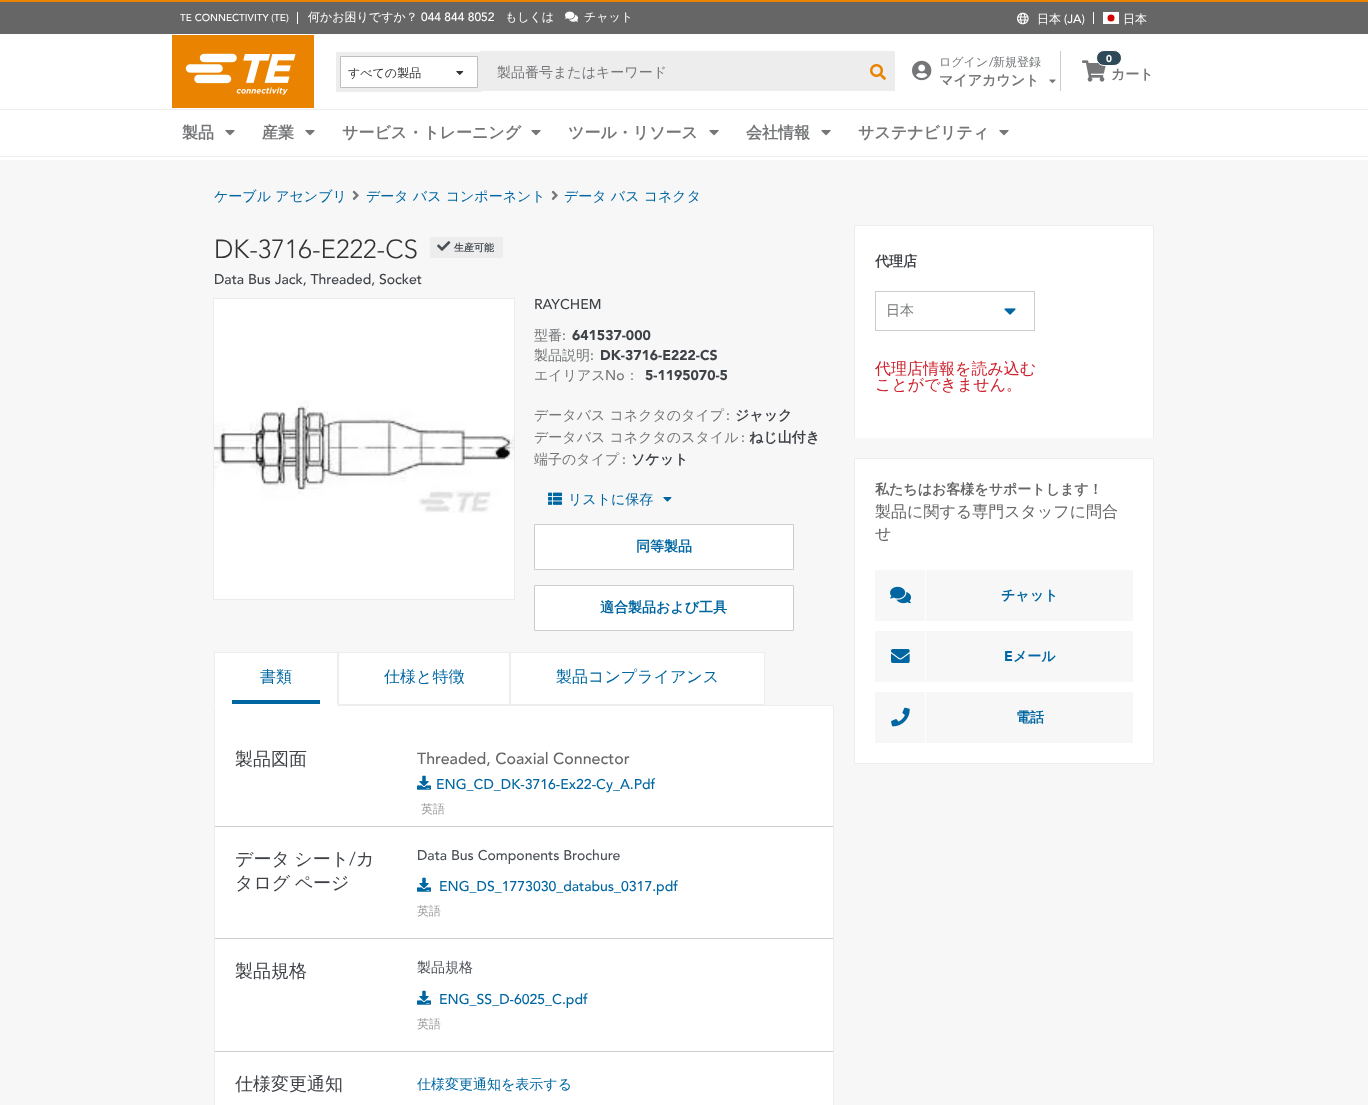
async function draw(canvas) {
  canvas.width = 1368;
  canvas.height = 1105;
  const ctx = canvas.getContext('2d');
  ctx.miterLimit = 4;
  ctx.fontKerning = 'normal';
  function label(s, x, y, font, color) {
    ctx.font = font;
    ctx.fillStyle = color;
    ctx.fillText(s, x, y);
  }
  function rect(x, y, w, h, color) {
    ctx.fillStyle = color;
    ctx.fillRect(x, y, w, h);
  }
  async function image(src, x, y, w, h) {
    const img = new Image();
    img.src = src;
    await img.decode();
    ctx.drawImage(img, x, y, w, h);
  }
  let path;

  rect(0, 0, 1368, 1105, '#fff');
  rect(0, 2, 1368, 32, '#666');
  rect(0, 0, 1368, 2, '#e98300');
  label('TE CONNECTIVITY (TE)', 180, 21, '500 10px Avenir', '#fff');
  rect(297, 12, 1, 12, '#fff');
  label('何かお困りですか？', 308, 21, '500 12px WenQuanYi Zen Hei', '#fff');
  label('044 844 8052', 421, 21, '500 12px Avenir', '#fff');
  label('もしくは', 505, 21, '500 12px WenQuanYi Zen Hei', '#fff');
  await image('assets/img1.png', 565, 11, 13, 11);
  label('チャット', 584, 21, '500 12px WenQuanYi Zen Hei', '#fff');
  await image('assets/img2.png', 1017, 12, 12, 13);
  label('日本', 1037, 23, '500 12px WenQuanYi Zen Hei', '#fff');
  label('(JA)', 1064, 23, '500 12px Avenir', '#fff');
  rect(1093, 12, 1, 12, '#fff');
  rect(1103, 12, 16, 12, '#fff');
  ctx.fillStyle = '#d30000';
  ctx.beginPath();
  ctx.arc(1111, 18, 3.5, 0, 2 * Math.PI);
  ctx.fill();
  label('日本', 1123, 23, '500 12px WenQuanYi Zen Hei', '#fff');
  await image('assets/img3.png', 172, 35, 142, 73);
  rect(480, 51, 415, 40, '#ededee');
  rect(336, 52, 146, 40, '#ededee');
  ctx.fillStyle = '#fff';
  ctx.beginPath();
  ctx.rect(340.5, 56.5, 137, 31);
  ctx.fill();
  ctx.strokeStyle = '#bfbfbf';
  ctx.stroke();
  label('すべての製品', 348, 77, '500 12px WenQuanYi Zen Hei', '#333');
  await image('assets/img4.png', 456, 71, 8, 4);
  label('製品番号またはキーワード', 497, 77, '500 14px WenQuanYi Zen Hei', '#747678');
  await image('assets/img5.png', 870, 64, 16, 16);
  await image('assets/img6.png', 912, 60, 20, 21);
  label('ログイン', 939, 66, '500 12px WenQuanYi Zen Hei', '#747678');
  label('/', 989, 66, '500 12px Avenir', '#747678');
  label('新規登録', 993, 66, '500 12px WenQuanYi Zen Hei', '#747678');
  label('マイアカウント', 939, 85, 'bold 14px WenQuanYi Zen Hei', '#747678');
  await image('assets/img7.png', 1049, 79, 7, 5);
  rect(1060, 51, 1, 40, '#ccc');
  await image('assets/img8.png', 1082, 60, 24, 22);
  ctx.fillStyle = '#2e4957';
  ctx.beginPath();
  ctx.roundRect(1096.5, 50.5, 25, 15, 7.5);
  ctx.fill();
  ctx.strokeStyle = '#fff';
  ctx.stroke();
  label('0', 1106, 62, '900 10px Avenir', '#fff');
  label('カート', 1111, 79, 'bold 14px WenQuanYi Zen Hei', '#747678');
  rect(0, 109, 1368, 1, '#ededee');
  rect(0, 156, 1368, 1, '#ededee');
  label('製品', 182, 138, 'bold 16px WenQuanYi Zen Hei', '#747678');
  await image('assets/img9.png', 225, 130, 10, 6);
  label('産業', 262, 138, 'bold 16px WenQuanYi Zen Hei', '#747678');
  await image('assets/img9.png', 305, 130, 10, 6);
  label('サービス・トレーニング', 342, 138, 'bold 16px WenQuanYi Zen Hei', '#747678');
  await image('assets/img9.png', 531, 130, 10, 6);
  label('ツール・リソース', 568, 138, 'bold 16px WenQuanYi Zen Hei', '#747678');
  await image('assets/img9.png', 709, 130, 10, 6);
  label('会社情報', 746, 138, 'bold 16px WenQuanYi Zen Hei', '#747678');
  await image('assets/img9.png', 821, 130, 10, 6);
  label('サステナビリティ', 858, 138, 'bold 16px WenQuanYi Zen Hei', '#747678');
  await image('assets/img9.png', 999, 130, 10, 6);
  rect(0, 160, 1368, 945, '#f7f7f7');
  label('ケーブル アセンブリ', 214, 201, '500 14px WenQuanYi Zen Hei', '#0066a1');
  await image('assets/img10.png', 352, 190, 7, 10);
  label('データ バス コンポーネント', 366, 201, '500 14px WenQuanYi Zen Hei', '#0066a1');
  await image('assets/img10.png', 551, 190, 7, 10);
  label('データ バス コネクタ', 564, 201, '500 14px WenQuanYi Zen Hei', '#0066a1');
  label('DK-3716-E222-CS', 214, 258, '300 26px Avenir', '#333');
  rect(430, 237, 73, 21, '#ededee');
  await image('assets/img11.png', 437, 241, 14, 10);
  label('生産可能', 454, 251, 'bold 10px WenQuanYi Zen Hei', '#4a4f55');
  label('Data Bus Jack, Threaded, Socket', 214, 284, '500 14px Avenir', '#3f4348');
  rect(214, 299, 300, 300, '#fff');
  await image('assets/img12.png', 214, 400, 300, 113);
  ctx.strokeStyle = '#ebebeb';
  ctx.strokeRect(213.5, 298.5, 301, 301);
  label('RAYCHEM', 534, 309, '500 14px Avenir', '#3f4348');
  label('型番', 534, 340, '500 14px WenQuanYi Zen Hei', '#747678');
  label(':', 562, 340, '500 14px Avenir', '#747678');
  label('641537-000', 572, 340, '900 14px Avenir', '#3f4348');
  label('製品説明', 534, 360, '500 14px WenQuanYi Zen Hei', '#747678');
  label(':', 590, 360, '500 14px Avenir', '#747678');
  label('DK-3716-E222-CS', 600, 360, '900 14px Avenir', '#3f4348');
  label('エイリアス', 534, 380, '500 14px WenQuanYi Zen Hei', '#747678');
  label('No', 605, 380, '500 14px Avenir', '#747678');
  label('：', 625, 380, '500 14px WenQuanYi Zen Hei', '#747678');
  label('5-1195070-5', 645, 380, '900 14px Avenir', '#3f4348');
  label('データバス コネクタのタイプ', 534, 420, '500 14px WenQuanYi Zen Hei', '#747678');
  label(':', 726, 420, '500 14px Avenir', '#747678');
  label('ジャック', 735, 420, 'bold 14px WenQuanYi Zen Hei', '#3f4348');
  label('データバス コネクタのスタイル', 534, 442, '500 14px WenQuanYi Zen Hei', '#747678');
  label(':', 741, 442, '500 14px Avenir', '#747678');
  label('ねじ山付き', 749, 442, 'bold 14px WenQuanYi Zen Hei', '#3f4348');
  label('端子のタイプ', 534, 464, '500 14px WenQuanYi Zen Hei', '#747678');
  label(':', 622, 464, '500 14px Avenir', '#747678');
  label('ソケット', 631, 464, 'bold 14px WenQuanYi Zen Hei', '#3f4348');
  await image('assets/img13.png', 548, 492, 14, 13);
  label('リストに保存', 568, 504, '500 14px WenQuanYi Zen Hei', '#0066a1');
  await image('assets/img14.png', 663, 497, 9, 5);
  ctx.fillStyle = '#fff';
  ctx.beginPath();
  ctx.rect(534.5, 524.5, 259, 45);
  ctx.fill();
  ctx.strokeStyle = '#ccc';
  ctx.stroke();
  label('同等製品', 636, 551, 'bold 14px WenQuanYi Zen Hei', '#0066a1');
  ctx.fillStyle = '#fff';
  ctx.beginPath();
  ctx.rect(534.5, 585.5, 259, 45);
  ctx.fill();
  ctx.stroke();
  label('適合製品および工具', 600, 612, 'bold 14px WenQuanYi Zen Hei', '#0066a1');
  rect(855, 226, 298, 212, '#fff');
  rect(854, 225, 300, 1, '#ededee');
  rect(1153, 225, 1, 213, '#ededee');
  rect(854, 225, 1, 213, '#ededee');
  label('代理店', 875, 266, 'bold 14px WenQuanYi Zen Hei', '#3f4348');
  ctx.strokeRect(875.5, 291.5, 159, 39);
  label('日本', 886, 315, '500 14px WenQuanYi Zen Hei', '#747678');
  await image('assets/img15.png', 1004, 308, 12, 7);
  label('代理店情報を読み込む', 875, 374, '500 16px WenQuanYi Zen Hei', '#cd202c');
  label('ことができません。', 875, 390, '500 16px WenQuanYi Zen Hei', '#cd202c');
  ctx.fillStyle = '#fff';
  ctx.beginPath();
  ctx.rect(854.5, 458.5, 299, 305);
  ctx.fill();
  ctx.strokeStyle = '#ededee';
  ctx.stroke();
  label('私たちはお客様をサポートします！', 875, 494, 'bold 14px WenQuanYi Zen Hei', '#666');
  label('製品に関する専門スタッフに問合', 875, 517, '500 16px WenQuanYi Zen Hei', '#666');
  label('せ', 875, 539, '500 16px WenQuanYi Zen Hei', '#666');
  rect(875, 570, 258, 51, '#f7f7f7');
  rect(925, 570, 1, 51, '#fff');
  await image('assets/img16.png', 890, 586, 21, 18);
  label('チャット', 1001, 600, 'bold 14px WenQuanYi Zen Hei', '#0066a1');
  rect(875, 631, 258, 51, '#f7f7f7');
  rect(925, 631, 1, 51, '#fff');
  await image('assets/img17.png', 891, 649, 19, 14);
  label('E', 1004, 661, '900 14px Avenir', '#0066a1');
  label('メール', 1013, 661, 'bold 14px WenQuanYi Zen Hei', '#0066a1');
  rect(875, 692, 258, 51, '#f7f7f7');
  rect(925, 692, 1, 51, '#fff');
  await image('assets/img18.png', 891, 707, 19, 20);
  label('電話', 1016, 722, 'bold 14px WenQuanYi Zen Hei', '#0066a1');
  rect(215, 706, 618, 399, '#fff');
  rect(214, 705, 620, 1, '#ededee');
  rect(215, 653, 122, 51, '#fff');
  rect(214, 652, 124, 1, '#ededee');
  path = new Path2D('M338 652V706L337 704V653Z');
  ctx.fill(path);
  ctx.fillStyle = '#fff';
  path = new Path2D('M338 706H214L215 704H337Z');
  ctx.fill(path);
  ctx.fillStyle = '#ededee';
  path = new Path2D('M214 706V652L215 653V704Z');
  ctx.fill(path);
  rect(232, 700, 88, 4, '#0066a1');
  label('書類', 260, 682, '500 16px WenQuanYi Zen Hei', '#0066a1');
  ctx.fillStyle = '#fff';
  ctx.beginPath();
  ctx.rect(338.5, 652.5, 171, 52);
  ctx.fill();
  ctx.stroke();
  label('仕様と特徴', 384, 682, '500 16px WenQuanYi Zen Hei', '#0066a1');
  ctx.fillStyle = '#fff';
  ctx.beginPath();
  ctx.rect(510.5, 652.5, 254, 52);
  ctx.fill();
  ctx.stroke();
  label('製品コンプライアンス', 556, 682, '500 16px WenQuanYi Zen Hei', '#0066a1');
  rect(833, 706, 1, 399, '#ededee');
  rect(214, 706, 1, 399, '#ededee');
  rect(215, 826, 618, 1, '#ccc');
  label('製品図面', 235, 765, '500 18px WenQuanYi Zen Hei', '#3f4348');
  label('Threaded, Coaxial Connector', 417, 764, '500 16px Avenir', '#666');
  await image('assets/img19.png', 417, 775, 14, 15);
  label('ENG_CD_DK-3716-Ex22-Cy_A.Pdf', 436, 789, '500 14px Avenir', '#0066a1');
  label('英語', 421, 813, '500 12px WenQuanYi Zen Hei', '#999');
  rect(215, 938, 618, 1, '#ccc');
  ctx.wordSpacing = '-1px';
  label('データ シート', 235, 865, '500 18px WenQuanYi Zen Hei', '#3f4348');
  ctx.wordSpacing = '0px';
  label('/', 349, 865, '300 18px Avenir', '#3f4348');
  label('カ', 356, 865, '500 18px WenQuanYi Zen Hei', '#3f4348');
  ctx.wordSpacing = '-1px';
  label('タログ ページ', 235, 889, '500 18px WenQuanYi Zen Hei', '#3f4348');
  ctx.wordSpacing = '0px';
  label('Data Bus Components Brochure', 417, 860, '500 14px Avenir', '#4a4f55');
  await image('assets/img19.png', 417, 877, 14, 15);
  label('ENG_DS_1773030_databus_0317.pdf', 439, 891, '500 14px Avenir', '#0066a1');
  label('英語', 417, 915, '500 12px WenQuanYi Zen Hei', '#999');
  rect(215, 1051, 618, 1, '#ccc');
  label('製品規格', 235, 977, '500 18px WenQuanYi Zen Hei', '#3f4348');
  label('製品規格', 417, 972, '500 14px WenQuanYi Zen Hei', '#4a4f55');
  await image('assets/img19.png', 417, 990, 14, 15);
  label('ENG_SS_D-6025_C.pdf', 439, 1004, '500 14px Avenir', '#0066a1');
  label('英語', 417, 1028, '500 12px WenQuanYi Zen Hei', '#999');
  label('仕様変更通知', 235, 1090, '500 18px WenQuanYi Zen Hei', '#3f4348');
  label('仕様変更通知を表示する', 417, 1089, '500 14px WenQuanYi Zen Hei', '#0066a1');
}

draw(document.querySelector('canvas'));
